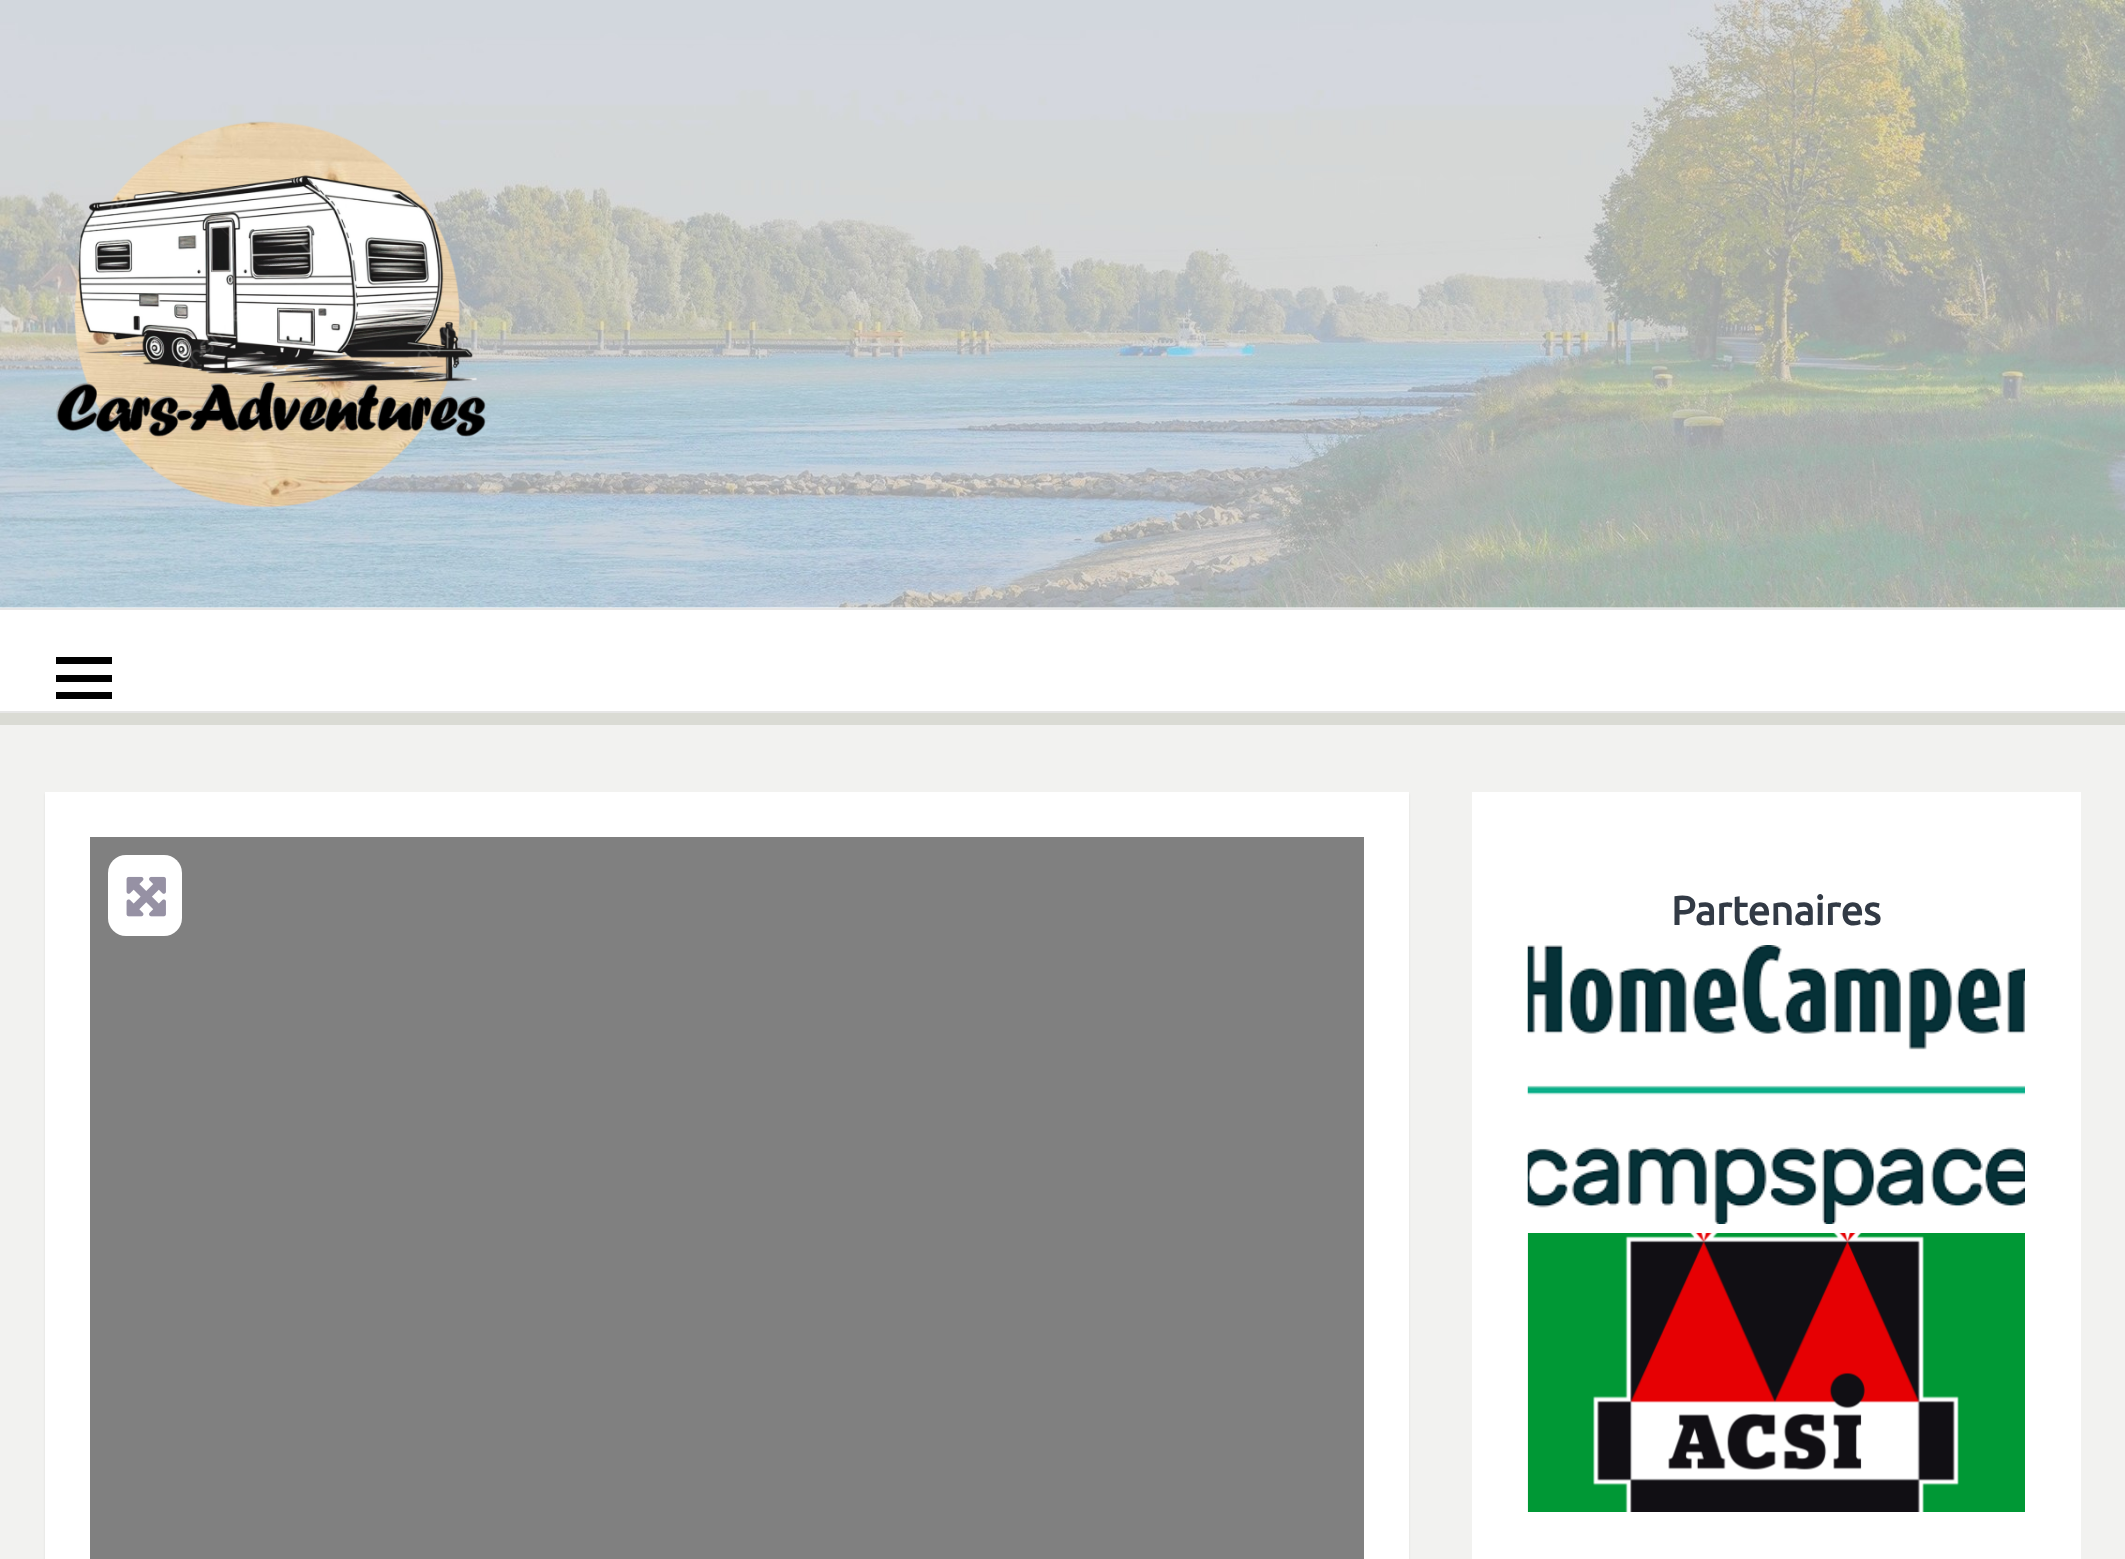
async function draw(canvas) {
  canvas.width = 2125;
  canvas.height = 1559;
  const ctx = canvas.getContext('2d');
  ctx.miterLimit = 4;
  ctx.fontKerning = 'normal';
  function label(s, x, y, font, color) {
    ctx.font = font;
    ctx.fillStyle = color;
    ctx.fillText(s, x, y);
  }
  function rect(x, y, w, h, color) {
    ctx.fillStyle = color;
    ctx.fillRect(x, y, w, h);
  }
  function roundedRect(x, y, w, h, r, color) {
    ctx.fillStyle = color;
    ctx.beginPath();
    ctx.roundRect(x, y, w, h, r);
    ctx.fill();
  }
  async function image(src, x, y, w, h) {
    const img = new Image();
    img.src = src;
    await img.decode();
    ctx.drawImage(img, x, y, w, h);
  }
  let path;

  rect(0, 0, 2125, 1559, '#fff');
  await image('assets/img1.png', 0, 0, 2125, 608);
  await image('assets/img2.png', 56, 121, 430, 387);
  rect(0, 608, 2125, 2, '#e6e6e6');
  rect(0, 711, 2125, 2, '#e6e6e6');
  ctx.fillStyle = '#000';
  path = new Path2D('M56 699V692H112V699ZM56 657H112V664H56ZM56 682V675H112V682Z');
  ctx.fill(path);
  rect(0, 725, 2125, 834, '#f2f2f0');
  rect(0, 713, 2125, 12, '#dadbd4');
  ctx.fillStyle = '#00000014';
  ctx.filter = 'blur(1px)';
  ctx.beginPath();
  ctx.rect(45, 794, 1364, 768);
  ctx.fill();
  ctx.filter = 'none';
  rect(45, 792, 1364, 767, '#fff');
  rect(90, 837, 1274, 722, '#808080');
  roundedRect(108, 855, 74, 81, 18, '#fff');
  await image('assets/img3.png', 126, 876, 40, 41);
  rect(1472, 792, 609, 767, '#fff');
  label('Partenaires', 1671, 925, 'bold 40.5px Ubuntu', '#323a45');
  await image('assets/img4.png', 1527, 945, 498, 279);
  await image('assets/img5.png', 1527, 1233, 498, 279);
}

draw(document.querySelector('canvas'));
